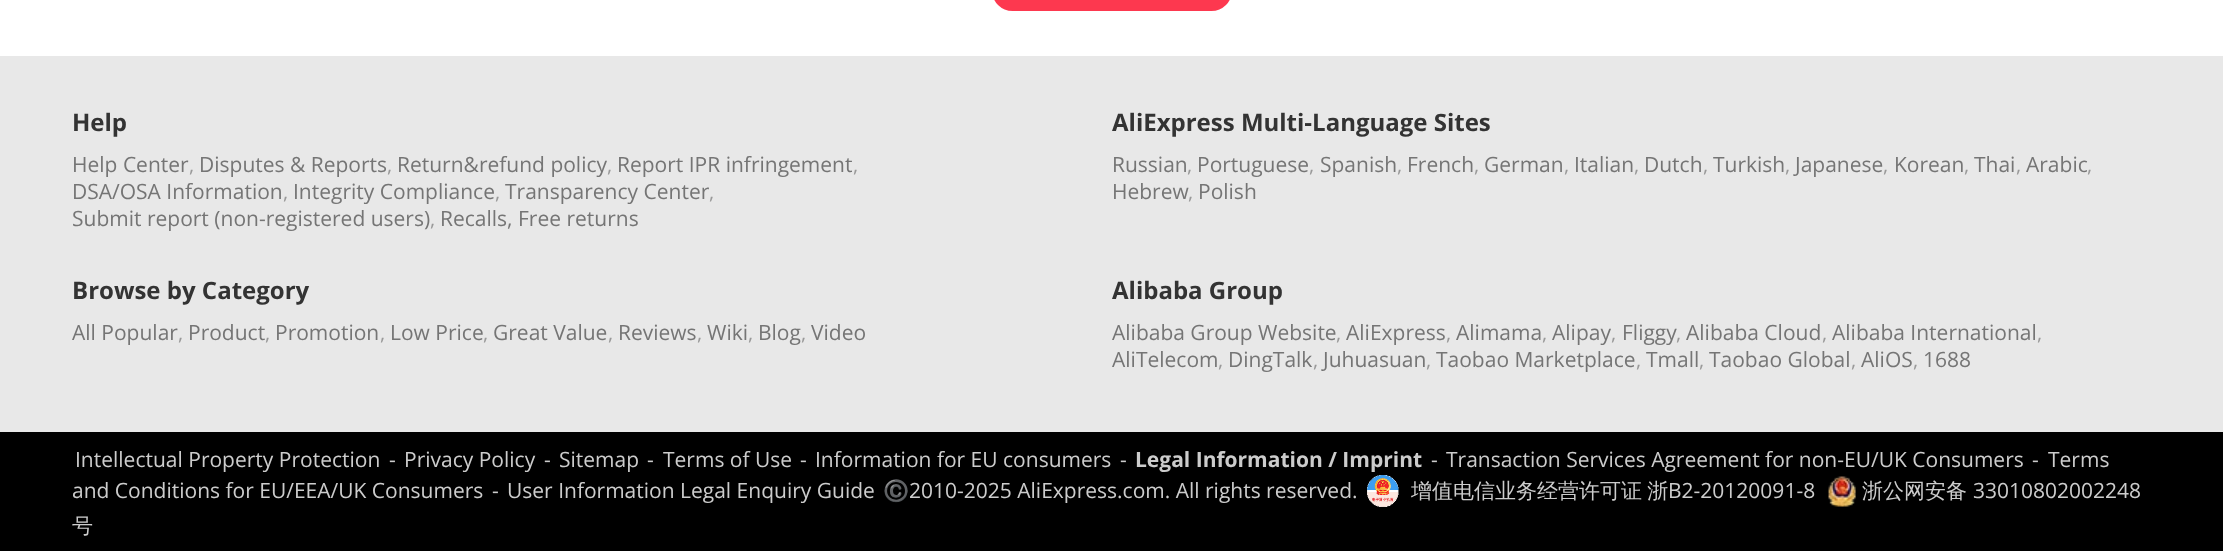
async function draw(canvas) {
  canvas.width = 2223;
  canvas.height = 551;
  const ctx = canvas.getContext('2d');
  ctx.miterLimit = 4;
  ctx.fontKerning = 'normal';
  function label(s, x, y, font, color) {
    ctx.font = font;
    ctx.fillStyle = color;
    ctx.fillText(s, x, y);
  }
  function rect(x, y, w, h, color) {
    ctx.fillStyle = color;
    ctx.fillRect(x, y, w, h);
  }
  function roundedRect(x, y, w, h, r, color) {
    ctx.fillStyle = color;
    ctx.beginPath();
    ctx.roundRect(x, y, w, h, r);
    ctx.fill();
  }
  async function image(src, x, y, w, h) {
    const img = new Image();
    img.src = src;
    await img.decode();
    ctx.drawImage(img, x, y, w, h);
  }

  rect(0, 0, 2223, 551, '#fff');
  roundedRect(992, -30, 240, 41, 30, '#fd384f');
  rect(0, 56, 2223, 376, '#e8e8e8');
  label('Help', 72, 131, 'bold 24px Open Sans', '#333');
  label('Help Center', 72, 172, '21px Open Sans', '#757575');
  label(',', 189, 172, '20px Open Sans', '#999');
  label('Disputes & Reports', 199, 172, '21px Open Sans', '#757575');
  label(',', 387, 172, '20px Open Sans', '#999');
  label('Return&refund policy', 397, 172, '21px Open Sans', '#757575');
  label(',', 607, 172, '20px Open Sans', '#999');
  label('Report IPR infringement', 617, 172, '21px Open Sans', '#757575');
  label(',', 853, 172, '20px Open Sans', '#999');
  label('DSA/OSA Information', 72, 199, '21px Open Sans', '#757575');
  label(',', 283, 199, '20px Open Sans', '#999');
  label('Integrity Compliance', 293, 199, '21px Open Sans', '#757575');
  label(',', 495, 199, '20px Open Sans', '#999');
  label('Transparency Center', 505, 199, '21px Open Sans', '#757575');
  label(',', 709, 199, '20px Open Sans', '#999');
  label('Submit report (non-registered users)', 72, 226, '21px Open Sans', '#757575');
  label(',', 430, 226, '20px Open Sans', '#999');
  label('Recalls,', 440, 226, '21px Open Sans', '#757575');
  label('Free returns', 518, 226, '21px Open Sans', '#757575');
  label('AliExpress Multi-Language Sites', 1112, 131, 'bold 24px Open Sans', '#333');
  label('Russian', 1112, 172, '21px Open Sans', '#757575');
  label(',', 1187, 172, '20px Open Sans', '#999');
  label('Portuguese', 1197, 172, '21px Open Sans', '#757575');
  label(',', 1309, 172, '20px Open Sans', '#999');
  label('Spanish', 1320, 172, '21px Open Sans', '#757575');
  label(',', 1397, 172, '20px Open Sans', '#999');
  label('French', 1407, 172, '21px Open Sans', '#757575');
  label(',', 1474, 172, '20px Open Sans', '#999');
  label('German', 1484, 172, '21px Open Sans', '#757575');
  label(',', 1564, 172, '20px Open Sans', '#999');
  label('Italian', 1574, 172, '21px Open Sans', '#757575');
  label(',', 1634, 172, '20px Open Sans', '#999');
  label('Dutch', 1644, 172, '21px Open Sans', '#757575');
  label(',', 1703, 172, '20px Open Sans', '#999');
  label('Turkish', 1713, 172, '21px Open Sans', '#757575');
  label(',', 1785, 172, '20px Open Sans', '#999');
  label('Japanese', 1795, 172, '21px Open Sans', '#757575');
  label(',', 1883, 172, '20px Open Sans', '#999');
  label('Korean', 1894, 172, '21px Open Sans', '#757575');
  label(',', 1964, 172, '20px Open Sans', '#999');
  label('Thai', 1974, 172, '21px Open Sans', '#757575');
  label(',', 2016, 172, '20px Open Sans', '#999');
  label('Arabic', 2026, 172, '21px Open Sans', '#757575');
  label(',', 2087, 172, '20px Open Sans', '#999');
  label('Hebrew', 1112, 199, '21px Open Sans', '#757575');
  label(',', 1188, 199, '20px Open Sans', '#999');
  label('Polish', 1198, 199, '21px Open Sans', '#757575');
  label('Browse by Category', 72, 299, 'bold 24px Open Sans', '#333');
  label('All Popular', 72, 340, '21px Open Sans', '#757575');
  label(',', 178, 340, '20px Open Sans', '#999');
  label('Product', 188, 340, '21px Open Sans', '#757575');
  label(',', 265, 340, '20px Open Sans', '#999');
  label('Promotion', 275, 340, '21px Open Sans', '#757575');
  label(',', 380, 340, '20px Open Sans', '#999');
  label('Low Price', 390, 340, '21px Open Sans', '#757575');
  label(',', 483, 340, '20px Open Sans', '#999');
  label('Great Value', 493, 340, '21px Open Sans', '#757575');
  label(',', 608, 340, '20px Open Sans', '#999');
  label('Reviews', 618, 340, '21px Open Sans', '#757575');
  label(',', 697, 340, '20px Open Sans', '#999');
  label('Wiki', 707, 340, '21px Open Sans', '#757575');
  label(',', 748, 340, '20px Open Sans', '#999');
  label('Blog', 758, 340, '21px Open Sans', '#757575');
  label(',', 801, 340, '20px Open Sans', '#999');
  label('Video', 811, 340, '21px Open Sans', '#757575');
  label('Alibaba Group', 1112, 299, 'bold 24px Open Sans', '#333');
  label('Alibaba Group Website', 1112, 340, '21px Open Sans', '#757575');
  label(',', 1336, 340, '20px Open Sans', '#999');
  label('AliExpress', 1346, 340, '21px Open Sans', '#757575');
  label(',', 1446, 340, '20px Open Sans', '#999');
  label('Alimama', 1456, 340, '21px Open Sans', '#757575');
  label(',', 1542, 340, '20px Open Sans', '#999');
  label('Alipay', 1552, 340, '21px Open Sans', '#757575');
  label(',', 1611, 340, '20px Open Sans', '#999');
  label('Fliggy', 1622, 340, '21px Open Sans', '#757575');
  label(',', 1676, 340, '20px Open Sans', '#999');
  label('Alibaba Cloud', 1686, 340, '21px Open Sans', '#757575');
  label(',', 1822, 340, '20px Open Sans', '#999');
  label('Alibaba International', 1832, 340, '21px Open Sans', '#757575');
  label(',', 2037, 340, '20px Open Sans', '#999');
  label('AliTelecom', 1112, 367, '21px Open Sans', '#757575');
  label(',', 1218, 367, '20px Open Sans', '#999');
  label('DingTalk', 1228, 367, '21px Open Sans', '#757575');
  label(',', 1313, 367, '20px Open Sans', '#999');
  label('Juhuasuan', 1323, 367, '21px Open Sans', '#757575');
  label(',', 1426, 367, '20px Open Sans', '#999');
  label('Taobao Marketplace', 1436, 367, '21px Open Sans', '#757575');
  label(',', 1636, 367, '20px Open Sans', '#999');
  label('Tmall', 1646, 367, '21px Open Sans', '#757575');
  label(',', 1699, 367, '20px Open Sans', '#999');
  label('Taobao Global', 1709, 367, '21px Open Sans', '#757575');
  label(',', 1851, 367, '20px Open Sans', '#999');
  label('AliOS', 1861, 367, '21px Open Sans', '#757575');
  label(',', 1913, 367, '20px Open Sans', '#999');
  label('1688', 1923, 367, '21px Open Sans', '#757575');
  rect(0, 432, 2223, 119, '#000');
  label('Intellectual Property Protection', 75, 467, '21px Open Sans', '#ccc');
  label('-', 389, 467, '21px Open Sans', '#ccc');
  label('Privacy Policy', 404, 467, '21px Open Sans', '#ccc');
  label('-', 544, 467, '21px Open Sans', '#ccc');
  label('Sitemap', 559, 467, '21px Open Sans', '#ccc');
  label('-', 647, 467, '21px Open Sans', '#ccc');
  label('Terms of Use', 663, 467, '21px Open Sans', '#ccc');
  label('-', 800, 467, '21px Open Sans', '#ccc');
  label('Information for EU consumers', 815, 467, '21px Open Sans', '#ccc');
  label('-', 1120, 467, '21px Open Sans', '#ccc');
  label('Legal Information / Imprint', 1135, 467, 'bold 21px Open Sans', '#ccc');
  label('-', 1431, 467, '21px Open Sans', '#ccc');
  label('Transaction Services Agreement for non-EU/UK Consumers', 1446, 467, '21px Open Sans', '#ccc');
  label('-', 2032, 467, '21px Open Sans', '#ccc');
  label('Terms', 2048, 467, '21px Open Sans', '#ccc');
  label('and Conditions for EU/EEA/UK Consumers', 72, 498, '21px Open Sans', '#ccc');
  label('-', 492, 498, '21px Open Sans', '#ccc');
  label('User Information Legal Enquiry Guide', 507, 498, '21px Open Sans', '#ccc');
  label('©️', 883, 498, '21px Noto Color Emoji', '#ccc');
  label('2010-2025 AliExpress.com. All rights reserved.', 909, 498, '21px Open Sans', '#ccc');
  await image('assets/img1.png', 1367, 475, 32, 32);
  ctx.wordSpacing = '-1px';
  label('增值电信业务经营许可证 浙', 1411, 498, '500 21px WenQuanYi Zen Hei', '#ccc');
  ctx.wordSpacing = '0px';
  label('B2-20120091-8', 1668, 498, '21px Open Sans', '#ccc');
  await image('assets/img2.png', 1828, 476, 28, 31);
  label('浙公网安备', 1862, 498, '500 21px WenQuanYi Zen Hei', '#ccc');
  label('33010802002248', 1973, 498, '21px Open Sans', '#ccc');
  label('号', 72, 533, '500 21px WenQuanYi Zen Hei', '#ccc');
}

draw(document.querySelector('canvas'));
